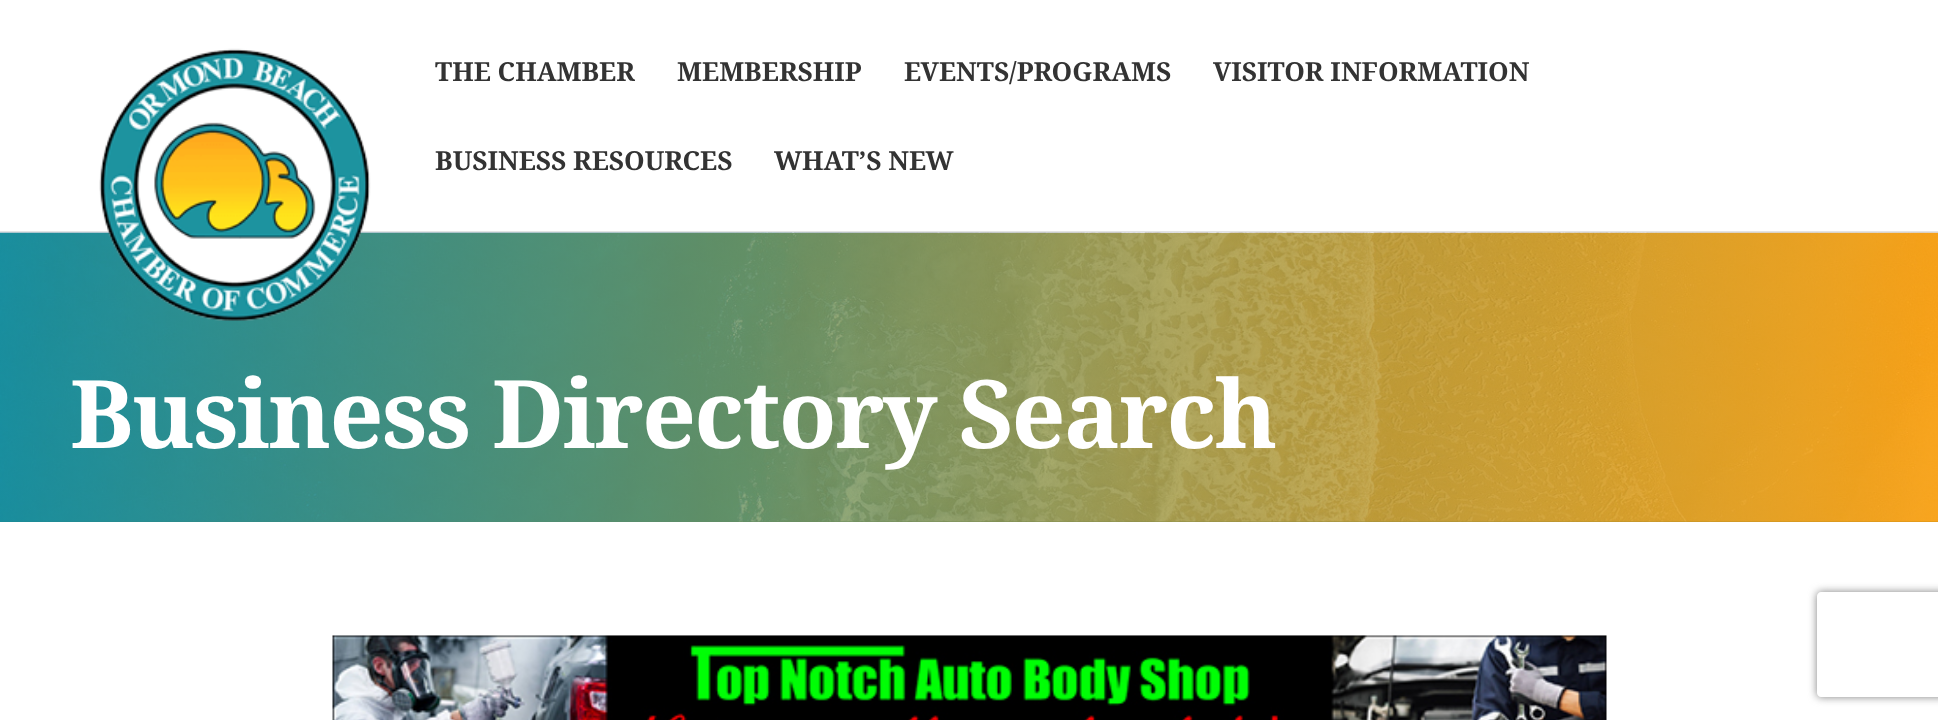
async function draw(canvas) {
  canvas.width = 1938;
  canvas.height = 720;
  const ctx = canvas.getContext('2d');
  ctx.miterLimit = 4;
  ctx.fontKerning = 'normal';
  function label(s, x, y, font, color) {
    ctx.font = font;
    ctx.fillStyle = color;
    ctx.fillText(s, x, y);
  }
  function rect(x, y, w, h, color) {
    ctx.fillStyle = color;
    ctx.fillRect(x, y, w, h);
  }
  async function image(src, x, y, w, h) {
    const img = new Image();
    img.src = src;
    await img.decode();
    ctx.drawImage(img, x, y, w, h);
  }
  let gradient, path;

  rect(0, 0, 1938, 720, '#fff');
  rect(0, 231, 1938, 2, '#e4e4e4');
  rect(0, 521, 1938, 1, '#0c4950');
  await image('assets/img2.png', 0, 232, 1938, 290);
  gradient = ctx.createLinearGradient(0, 377, 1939, 377);
  gradient.addColorStop(0, '#1d939fd9');
  gradient.addColorStop(1, '#ffa20ad4');
  ctx.fillStyle = gradient;
  ctx.fillRect(0, 233, 1938, 289);
  await image('assets/img1.png', 99, 48, 272, 273);
  label('THE CHAMBER', 435, 81, 'bold 26.25px Noto Serif', '#333');
  label('MEMBERSHIP', 677, 81, 'bold 26.25px Noto Serif', '#333');
  label('EVENTS/PROGRAMS', 904, 81, 'bold 26.25px Noto Serif', '#333');
  label('VISITOR INFORMATION', 1213, 81, 'bold 26.25px Noto Serif', '#333');
  label('BUSINESS RESOURCES', 435, 170, 'bold 26.25px Noto Serif', '#333');
  label('WHAT’S NEW', 774, 170, 'bold 26.25px Noto Serif', '#333');
  ctx.letterSpacing = '-1.75px';
  label('Business Directory Search', 70, 448, 'bold 94.5px Noto Serif', '#fff');
  await image('assets/img3.png', 332, 635, 1275, 85);
  ctx.save();
  path = new Path2D('M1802 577H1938V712H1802ZM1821 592H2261C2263 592 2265 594 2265 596V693C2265 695 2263 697 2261 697H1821C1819 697 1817 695 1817 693V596C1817 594 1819 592 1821 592Z');
  ctx.clip(path, 'evenodd');
  ctx.fillStyle = '#808080';
  ctx.filter = 'blur(4.5px)';
  ctx.beginPath();
  ctx.roundRect(1817, 592, 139, 105, 4);
  ctx.fill();
  ctx.filter = 'none';
  ctx.restore();
}

draw(document.querySelector('canvas'));
